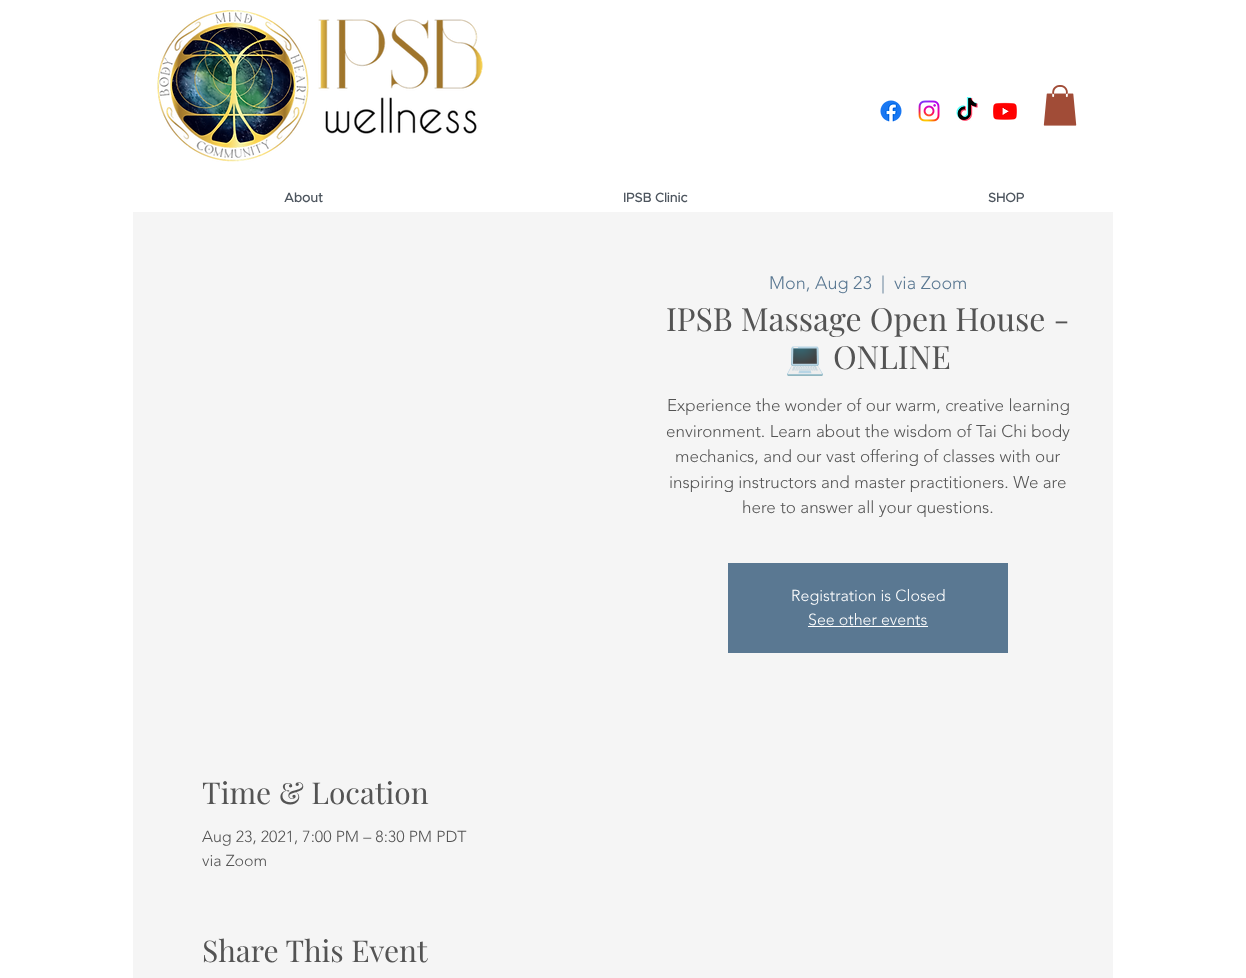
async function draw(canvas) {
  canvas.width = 1246;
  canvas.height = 978;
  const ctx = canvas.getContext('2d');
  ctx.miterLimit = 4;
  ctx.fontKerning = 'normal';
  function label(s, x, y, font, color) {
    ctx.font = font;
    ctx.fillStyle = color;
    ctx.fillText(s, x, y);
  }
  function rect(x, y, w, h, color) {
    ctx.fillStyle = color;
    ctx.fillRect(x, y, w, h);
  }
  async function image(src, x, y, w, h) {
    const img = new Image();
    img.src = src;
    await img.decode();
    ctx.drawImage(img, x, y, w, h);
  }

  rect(0, 0, 1246, 978, '#fff');
  await image('assets/img1.png', 157, 10, 326, 152);
  await image('assets/img2.png', 880, 100, 22, 22);
  await image('assets/img3.png', 918, 100, 22, 22);
  await image('assets/img4.png', 956, 97, 22, 24);
  await image('assets/img5.png', 993, 102, 24, 18);
  await image('assets/img6.png', 1043, 85, 34, 41);
  label('About', 284, 202, 'bold 13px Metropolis', '#4d555e');
  label('IPSB Clinic', 623, 202, 'bold 13px Metropolis', '#4d555e');
  label('SHOP', 988, 202, 'bold 13px Metropolis', '#4d555e');
  rect(133, 212, 980, 766, '#f5f5f5');
  label('Mon, Aug 23', 769, 289, '300 18px "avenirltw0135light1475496"', '#5a7892');
  label('|', 881, 289, '300 18px "avenirltw0135light1475496"', '#5a7892');
  label('via Zoom', 894, 289, '300 18px "avenirltw0135light1475496"', '#5a7892');
  label('IPSB Massage Open House -', 666, 331, '32px Playfair Display', '#545454');
  label('💻', 785, 369, '32px Noto Color Emoji', '#545454');
  label('ONLINE', 833, 369, '32px Playfair Display', '#545454');
  label('Experience the wonder of our warm, creative learning', 667, 411, '300 17px "avenirltw0135light1475496"', '#545454');
  label('environment. Learn about the wisdom of Tai Chi body', 666, 437, '300 17px "avenirltw0135light1475496"', '#545454');
  label('mechanics, and our vast offering of classes with our', 675, 462, '300 17px "avenirltw0135light1475496"', '#545454');
  label('inspiring instructors and master practitioners. We are', 669, 488, '300 17px "avenirltw0135light1475496"', '#545454');
  label('here to answer all your questions.', 742, 513, '300 17px "avenirltw0135light1475496"', '#545454');
  rect(728, 563, 280, 90, '#5a7892');
  label('Registration is Closed', 791, 601, '300 16px "avenirltw0135light1475496"', '#fff');
  label('See other events', 808, 625, '300 16px "avenirltw0135light1475496"', '#fff');
  rect(808, 626, 120, 1, '#fff');
  label('Time & Location', 202, 804, '30px Playfair Display', '#545454');
  label('Aug 23, 2021, 7:00 PM – 8:30 PM PDT', 202, 842, '300 16px "avenirltw0135light1475496"', '#545454');
  label('via Zoom', 202, 866, '300 16px "avenirltw0135light1475496"', '#545454');
  label('Share This Event', 202, 962, '30px Playfair Display', '#545454');
}

draw(document.querySelector('canvas'));
